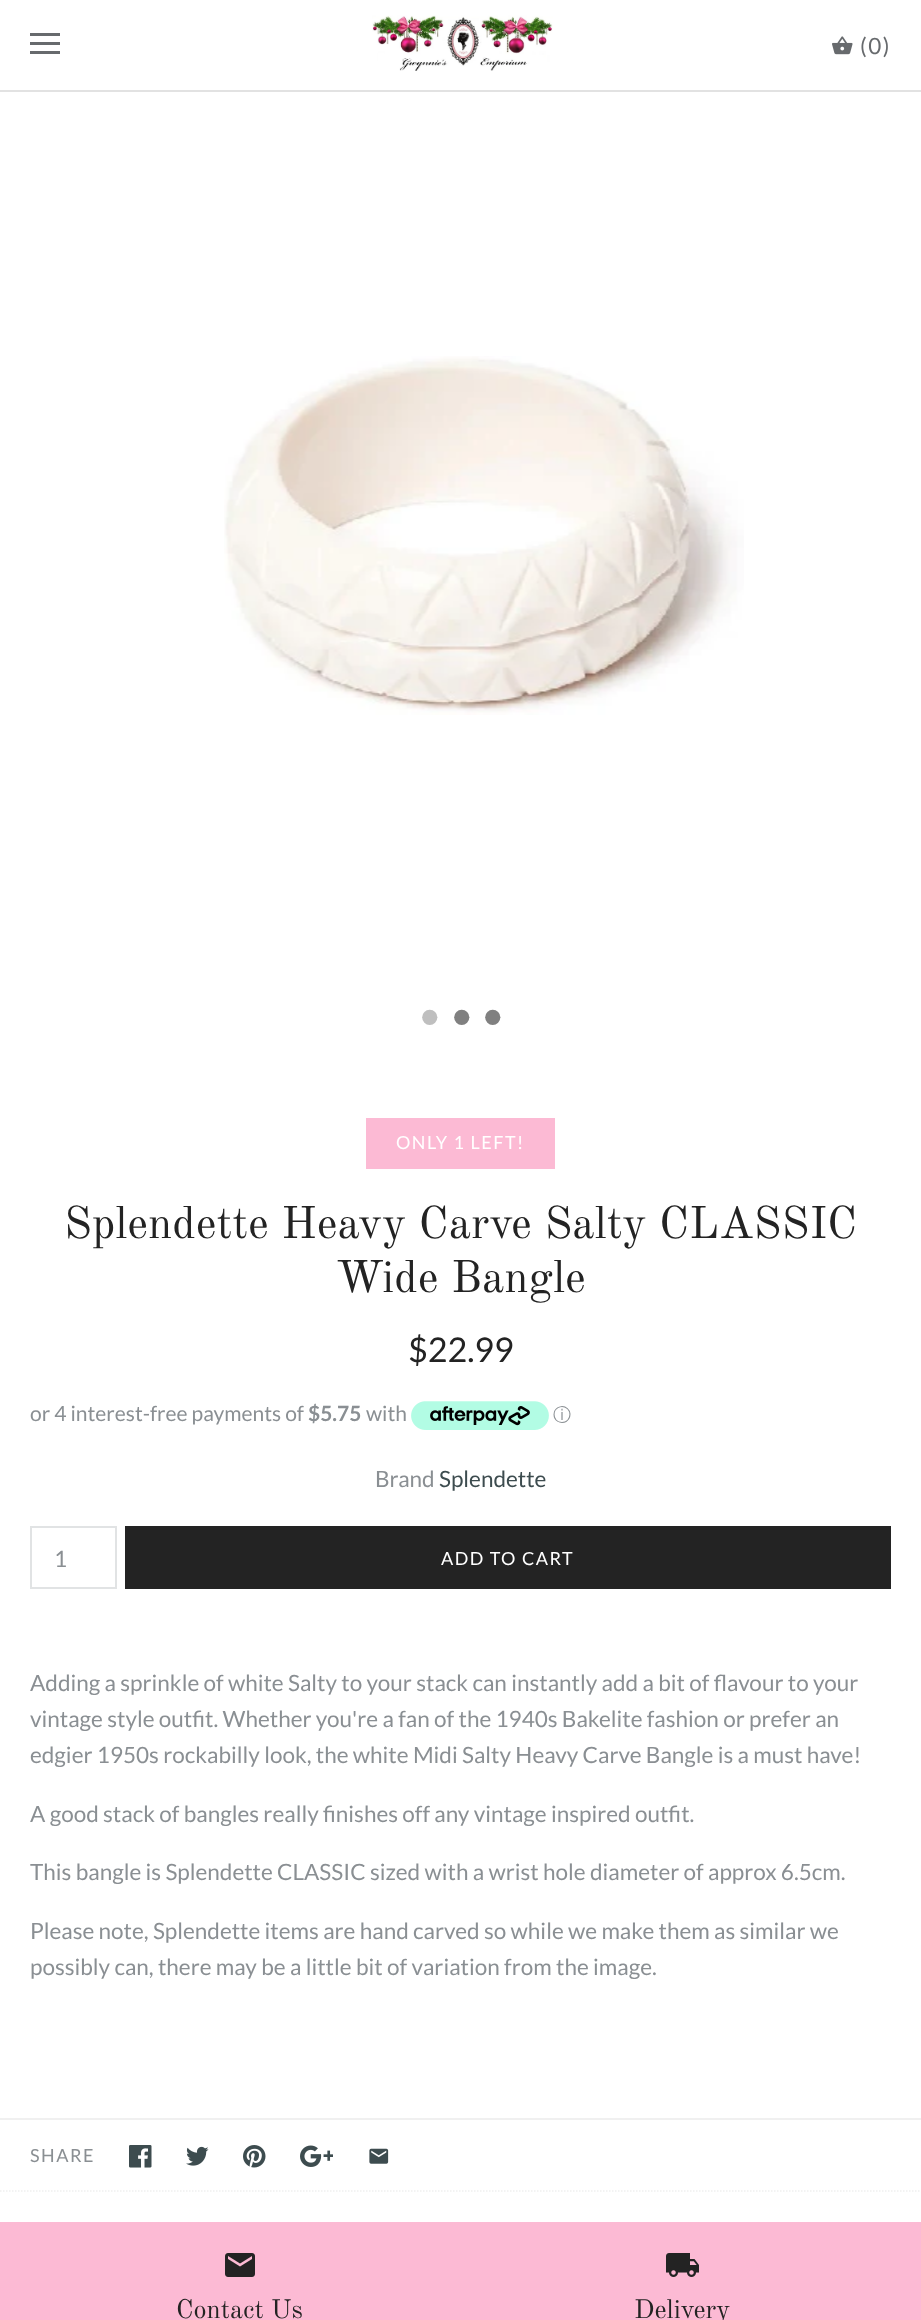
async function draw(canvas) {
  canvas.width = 921;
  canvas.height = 2320;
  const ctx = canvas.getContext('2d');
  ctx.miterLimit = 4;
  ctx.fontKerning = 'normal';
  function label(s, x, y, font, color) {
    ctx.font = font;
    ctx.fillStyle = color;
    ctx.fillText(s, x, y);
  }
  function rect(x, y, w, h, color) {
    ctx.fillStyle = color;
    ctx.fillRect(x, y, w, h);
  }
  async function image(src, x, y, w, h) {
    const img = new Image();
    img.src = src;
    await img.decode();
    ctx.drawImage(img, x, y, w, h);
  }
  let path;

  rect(0, 0, 921, 2320, '#fff');
  rect(0, 90, 921, 2, '#e2e2e2');
  rect(30, 33, 30, 3, '#676a6d');
  rect(30, 42, 30, 3, '#676a6d');
  rect(30, 51, 30, 3, '#676a6d');
  await image('assets/img1.png', 372, 15, 181, 56);
  await image('assets/img2.png', 832, 36, 21, 19);
  ctx.letterSpacing = '1.5px';
  label('(0)', 860, 54, '22.5px Lato', '#676a6d');
  await image('assets/img3.png', 224, 356, 520, 359);
  label('•', 413, 1036, '56px Liberation Mono', '#bfbfbf');
  label('•', 445, 1036, '56px Liberation Mono', '#808080');
  label('•', 476, 1036, '56px Liberation Mono', '#808080');
  rect(366, 1118, 189, 51, '#fcbad4');
  label('ONLY 1 LEFT!', 396, 1149, '18px Lato', '#fff');
  ctx.letterSpacing = '0px';
  label('Splendette Heavy Carve Salty CLASSIC', 64, 1238, '45px Old Standard TT', '#232323');
  label('Wide Bangle', 336, 1292, '45px Old Standard TT', '#232323');
  label('$22.99', 408, 1362, '34px Lato', '#232323');
  label('or 4 interest-free payments of', 30, 1421, '21px Lato', '#8a8f93');
  label('$5.75', 308, 1421, 'bold 21px Lato', '#8a8f93');
  label('with', 366, 1421, '21px Lato', '#8a8f93');
  await image('assets/img4.png', 411, 1401, 138, 29);
  label('ⓘ', 553, 1421, '500 18px WenQuanYi Zen Hei', '#8a8f93');
  label('Brand', 375, 1487, '22.5px Lato', '#8a8f93');
  label('Splendette', 439, 1487, '22.5px Lato', '#3d4c4f');
  ctx.strokeStyle = '#e1e3e4';
  ctx.lineWidth = 2;
  ctx.strokeRect(31, 1527, 85, 61);
  label('1', 54, 1567, '22.5px Lato', '#8a8f93');
  rect(125, 1526, 766, 63, '#232323');
  ctx.letterSpacing = '1.5px';
  label('ADD TO CART', 441, 1565, '18px Lato', '#fff');
  ctx.letterSpacing = '0px';
  label('Adding a sprinkle of white Salty to your stack can instantly add a bit of flavour to your', 30, 1691, '22.5px Lato', '#8a8f93');
  label('vintage style outfit. Whether you\'re a fan of the 1940s Bakelite fashion or prefer an', 30, 1727, '22.5px Lato', '#8a8f93');
  label('edgier 1950s rockabilly look, the white Midi Salty Heavy Carve Bangle is a must have!', 30, 1763, '22.5px Lato', '#8a8f93');
  label('A good stack of bangles really finishes off any vintage inspired outfit.', 30, 1822, '22.5px Lato', '#8a8f93');
  label('This bangle is Splendette CLASSIC sized with a wrist hole diameter of approx 6.5cm.', 30, 1880, '22.5px Lato', '#8a8f93');
  label('Please note, Splendette items are hand carved so while we make them as similar we', 30, 1939, '22.5px Lato', '#8a8f93');
  label('possibly can, there may be a little bit of variation from the image.', 30, 1975, '22.5px Lato', '#8a8f93');
  rect(0, 2118, 921, 2, '#f0f0f0');
  path = new Path2D('M0 2191H921');
  ctx.strokeStyle = '#f0f0f0';
  ctx.lineWidth = 1.5;
  ctx.setLineDash([1.5, 1.5]);
  ctx.stroke(path);
  ctx.letterSpacing = '1.5px';
  label('SHARE', 30, 2162, '18px Lato', '#8a8f93');
  await image('assets/img5.png', 129, 2145, 23, 23);
  await image('assets/img6.png', 186, 2146, 23, 20);
  await image('assets/img7.png', 243, 2145, 23, 23);
  await image('assets/img8.png', 300, 2145, 33, 22);
  await image('assets/img9.png', 369, 2148, 20, 16);
  rect(0, 2222, 921, 98, '#fcbad4');
  await image('assets/img10.png', 225, 2253, 30, 24);
  ctx.letterSpacing = '0px';
  label('Contact Us', 176, 2318, '26.25px Old Standard TT', '#232323');
  await image('assets/img11.png', 666, 2253, 33, 24);
  label('Delivery', 634, 2318, '26.25px Old Standard TT', '#232323');
}

draw(document.querySelector('canvas'));
